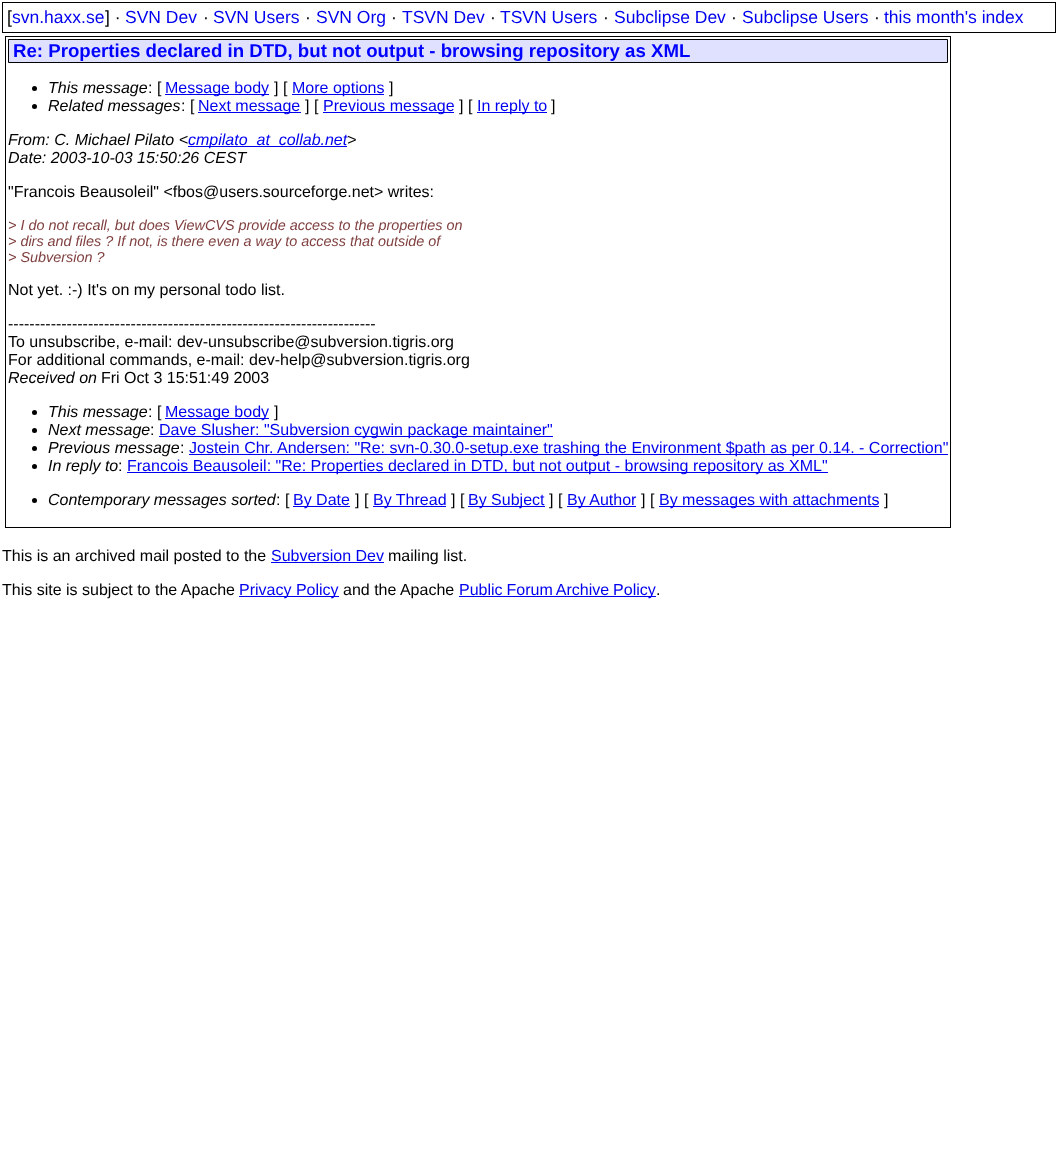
async function draw(canvas) {
  canvas.width = 1058;
  canvas.height = 1156;
  const ctx = canvas.getContext('2d');
  ctx.miterLimit = 4;
  ctx.fontKerning = 'normal';
  function label(s, x, y, font, color) {
    ctx.font = font;
    ctx.fillStyle = color;
    ctx.fillText(s, x, y);
  }
  function rect(x, y, w, h, color) {
    ctx.fillStyle = color;
    ctx.fillRect(x, y, w, h);
  }

  rect(0, 0, 1058, 1156, '#fff');
  ctx.strokeStyle = '#000';
  ctx.strokeRect(2.5, 2.5, 1053, 30);
  label('[', 7, 23, '17.5px Liberation Sans', '#000');
  label('svn.haxx.se', 12, 23, '17.5px Liberation Sans', '#00e');
  label('] ·', 105, 23, '17.5px Liberation Sans', '#000');
  label('SVN Dev', 125, 23, '17.5px Liberation Sans', '#00e');
  label('·', 203, 23, '17.5px Liberation Sans', '#000');
  label('SVN Users', 213, 23, '17.5px Liberation Sans', '#00e');
  label('·', 305, 23, '17.5px Liberation Sans', '#000');
  label('SVN Org', 316, 23, '17.5px Liberation Sans', '#00e');
  label('·', 391, 23, '17.5px Liberation Sans', '#000');
  label('TSVN Dev', 402, 23, '17.5px Liberation Sans', '#00e');
  label('·', 490, 23, '17.5px Liberation Sans', '#000');
  label('TSVN Users', 500, 23, '17.5px Liberation Sans', '#00e');
  label('·', 603, 23, '17.5px Liberation Sans', '#000');
  label('Subclipse Dev', 614, 23, '17.5px Liberation Sans', '#00e');
  label('·', 731, 23, '17.5px Liberation Sans', '#000');
  label('Subclipse Users', 742, 23, '17.5px Liberation Sans', '#00e');
  label('·', 874, 23, '17.5px Liberation Sans', '#000');
  label('this month\'s index', 884, 23, '17.5px Liberation Sans', '#00e');
  ctx.strokeRect(5.5, 36.5, 945, 491);
  ctx.fillStyle = '#e0e0ff';
  ctx.beginPath();
  ctx.rect(8.5, 39.5, 939, 23);
  ctx.fill();
  ctx.stroke();
  label('Re: Properties declared in DTD, but not output - browsing repository as XML', 13, 57, 'bold 18.65px Liberation Sans', '#00f');
  ctx.fillStyle = '#000';
  ctx.beginPath();
  ctx.arc(34.5, 88.5, 2.5, 0, 2 * Math.PI);
  ctx.fill();
  label('This message', 48, 93, 'italic 16px Liberation Sans', '#000');
  label(': [', 148, 93, '16px Liberation Sans', '#000');
  rect(165, 94, 104, 1, '#00e');
  label('Message body', 165, 93, '16px Liberation Sans', '#00e');
  label('] [', 274, 93, '16px Liberation Sans', '#000');
  rect(292, 94, 92, 1, '#00e');
  label('More options', 292, 93, '16px Liberation Sans', '#00e');
  label(']', 389, 93, '16px Liberation Sans', '#000');
  ctx.beginPath();
  ctx.arc(34.5, 106.5, 2.5, 0, 2 * Math.PI);
  ctx.fill();
  label('Related messages', 48, 111, 'italic 16px Liberation Sans', '#000');
  label(': [', 181, 111, '16px Liberation Sans', '#000');
  rect(198, 112, 103, 1, '#00e');
  label('Next message', 198, 111, '16px Liberation Sans', '#00e');
  label('] [', 305, 111, '16px Liberation Sans', '#000');
  rect(323, 112, 131, 1, '#00e');
  label('Previous message', 323, 111, '16px Liberation Sans', '#00e');
  label('] [', 459, 111, '16px Liberation Sans', '#000');
  rect(477, 112, 70, 1, '#00e');
  label('In reply to', 477, 111, '16px Liberation Sans', '#00e');
  label(']', 551, 111, '16px Liberation Sans', '#000');
  label('From: C. Michael Pilato <', 8, 145, 'italic 16px Liberation Sans', '#000');
  rect(188, 146, 159, 1, '#00e');
  label('cmpilato_at_collab.net', 188, 145, 'italic 16px Liberation Sans', '#00e');
  label('>', 347, 145, 'italic 16px Liberation Sans', '#000');
  label('Date: 2003-10-03 15:50:26 CEST', 8, 163, 'italic 16px Liberation Sans', '#000');
  label('"Francois Beausoleil" <fbos@users.sourceforge.net> writes:', 8, 197, '16px Liberation Sans', '#000');
  label('> I do not recall, but does ViewCVS provide access to the properties on', 8, 230, 'italic 14.4px Liberation Sans', '#804040');
  label('> dirs and files ? If not, is there even a way to access that outside of', 8, 246, 'italic 14.4px Liberation Sans', '#804040');
  label('> Subversion ?', 8, 262, 'italic 14.4px Liberation Sans', '#804040');
  label('Not yet. :-) It\'s on my personal todo list.', 8, 295, '16px Liberation Sans', '#000');
  label('---------------------------------------------------------------------', 8, 329, '16px Liberation Sans', '#000');
  label('To unsubscribe, e-mail: dev-unsubscribe@subversion.tigris.org', 8, 347, '16px Liberation Sans', '#000');
  label('For additional commands, e-mail: dev-help@subversion.tigris.org', 8, 365, '16px Liberation Sans', '#000');
  label('Received on', 8, 383, 'italic 16px Liberation Sans', '#000');
  label('Fri Oct 3 15:51:49 2003', 101, 383, '16px Liberation Sans', '#000');
  ctx.beginPath();
  ctx.arc(34.5, 412.5, 2.5, 0, 2 * Math.PI);
  ctx.fill();
  label('This message', 48, 417, 'italic 16px Liberation Sans', '#000');
  label(': [', 148, 417, '16px Liberation Sans', '#000');
  rect(165, 418, 104, 1, '#00e');
  label('Message body', 165, 417, '16px Liberation Sans', '#00e');
  label(']', 274, 417, '16px Liberation Sans', '#000');
  ctx.beginPath();
  ctx.arc(34.5, 430.5, 2.5, 0, 2 * Math.PI);
  ctx.fill();
  label('Next message', 48, 435, 'italic 16px Liberation Sans', '#000');
  label(':', 150, 435, '16px Liberation Sans', '#000');
  rect(159, 436, 394, 1, '#00e');
  label('Dave Slusher: "Subversion cygwin package maintainer"', 159, 435, '16px Liberation Sans', '#00e');
  ctx.fillStyle = '#000';
  ctx.beginPath();
  ctx.arc(34.5, 448.5, 2.5, 0, 2 * Math.PI);
  ctx.fill();
  label('Previous message', 48, 453, 'italic 16px Liberation Sans', '#000');
  label(':', 180, 453, '16px Liberation Sans', '#000');
  rect(189, 454, 759, 1, '#00e');
  label('Jostein Chr. Andersen: "Re: svn-0.30.0-setup.exe trashing the Environment $path as per 0.14. - Correction"', 189, 453, '16px Liberation Sans', '#00e');
  ctx.fillStyle = '#000';
  ctx.beginPath();
  ctx.arc(34.5, 466.5, 2.5, 0, 2 * Math.PI);
  ctx.fill();
  label('In reply to', 48, 471, 'italic 16px Liberation Sans', '#000');
  label(':', 118, 471, '16px Liberation Sans', '#000');
  rect(127, 472, 701, 1, '#00e');
  label('Francois Beausoleil: "Re: Properties declared in DTD, but not output - browsing repository as XML"', 127, 471, '16px Liberation Sans', '#00e');
  ctx.fillStyle = '#000';
  ctx.beginPath();
  ctx.arc(34.5, 500.5, 2.5, 0, 2 * Math.PI);
  ctx.fill();
  label('Contemporary messages sorted', 48, 505, 'italic 16px Liberation Sans', '#000');
  label(': [', 276, 505, '16px Liberation Sans', '#000');
  rect(293, 506, 57, 1, '#00e');
  label('By Date', 293, 505, '16px Liberation Sans', '#00e');
  label('] [', 355, 505, '16px Liberation Sans', '#000');
  rect(373, 506, 73, 1, '#00e');
  label('By Thread', 373, 505, '16px Liberation Sans', '#00e');
  label('] [', 451, 505, '16px Liberation Sans', '#000');
  rect(468, 506, 77, 1, '#00e');
  label('By Subject', 468, 505, '16px Liberation Sans', '#00e');
  label('] [', 549, 505, '16px Liberation Sans', '#000');
  rect(567, 506, 69, 1, '#00e');
  label('By Author', 567, 505, '16px Liberation Sans', '#00e');
  label('] [', 641, 505, '16px Liberation Sans', '#000');
  rect(659, 506, 220, 1, '#00e');
  label('By messages with attachments', 659, 505, '16px Liberation Sans', '#00e');
  label(']', 884, 505, '16px Liberation Sans', '#000');
  label('This is an archived mail posted to the', 2, 561, '16px Liberation Sans', '#000');
  label('Subversion Dev', 271, 561, '16px Liberation Sans', '#00e');
  rect(271, 562, 113, 1, '#00e');
  label('mailing list.', 388, 561, '16px Liberation Sans', '#000');
  label('This site is subject to the Apache', 2, 595, '16px Liberation Sans', '#000');
  rect(239, 596, 100, 1, '#00e');
  label('Privacy Policy', 239, 595, '16px Liberation Sans', '#00e');
  label('and the Apache', 343, 595, '16px Liberation Sans', '#000');
  rect(459, 596, 197, 1, '#00e');
  ctx.wordSpacing = '-0.5px';
  label('Public Forum Archive Policy', 459, 595, '16px Liberation Sans', '#00e');
  ctx.wordSpacing = '0px';
  label('.', 656, 595, '16px Liberation Sans', '#000');
}

draw(document.querySelector('canvas'));
